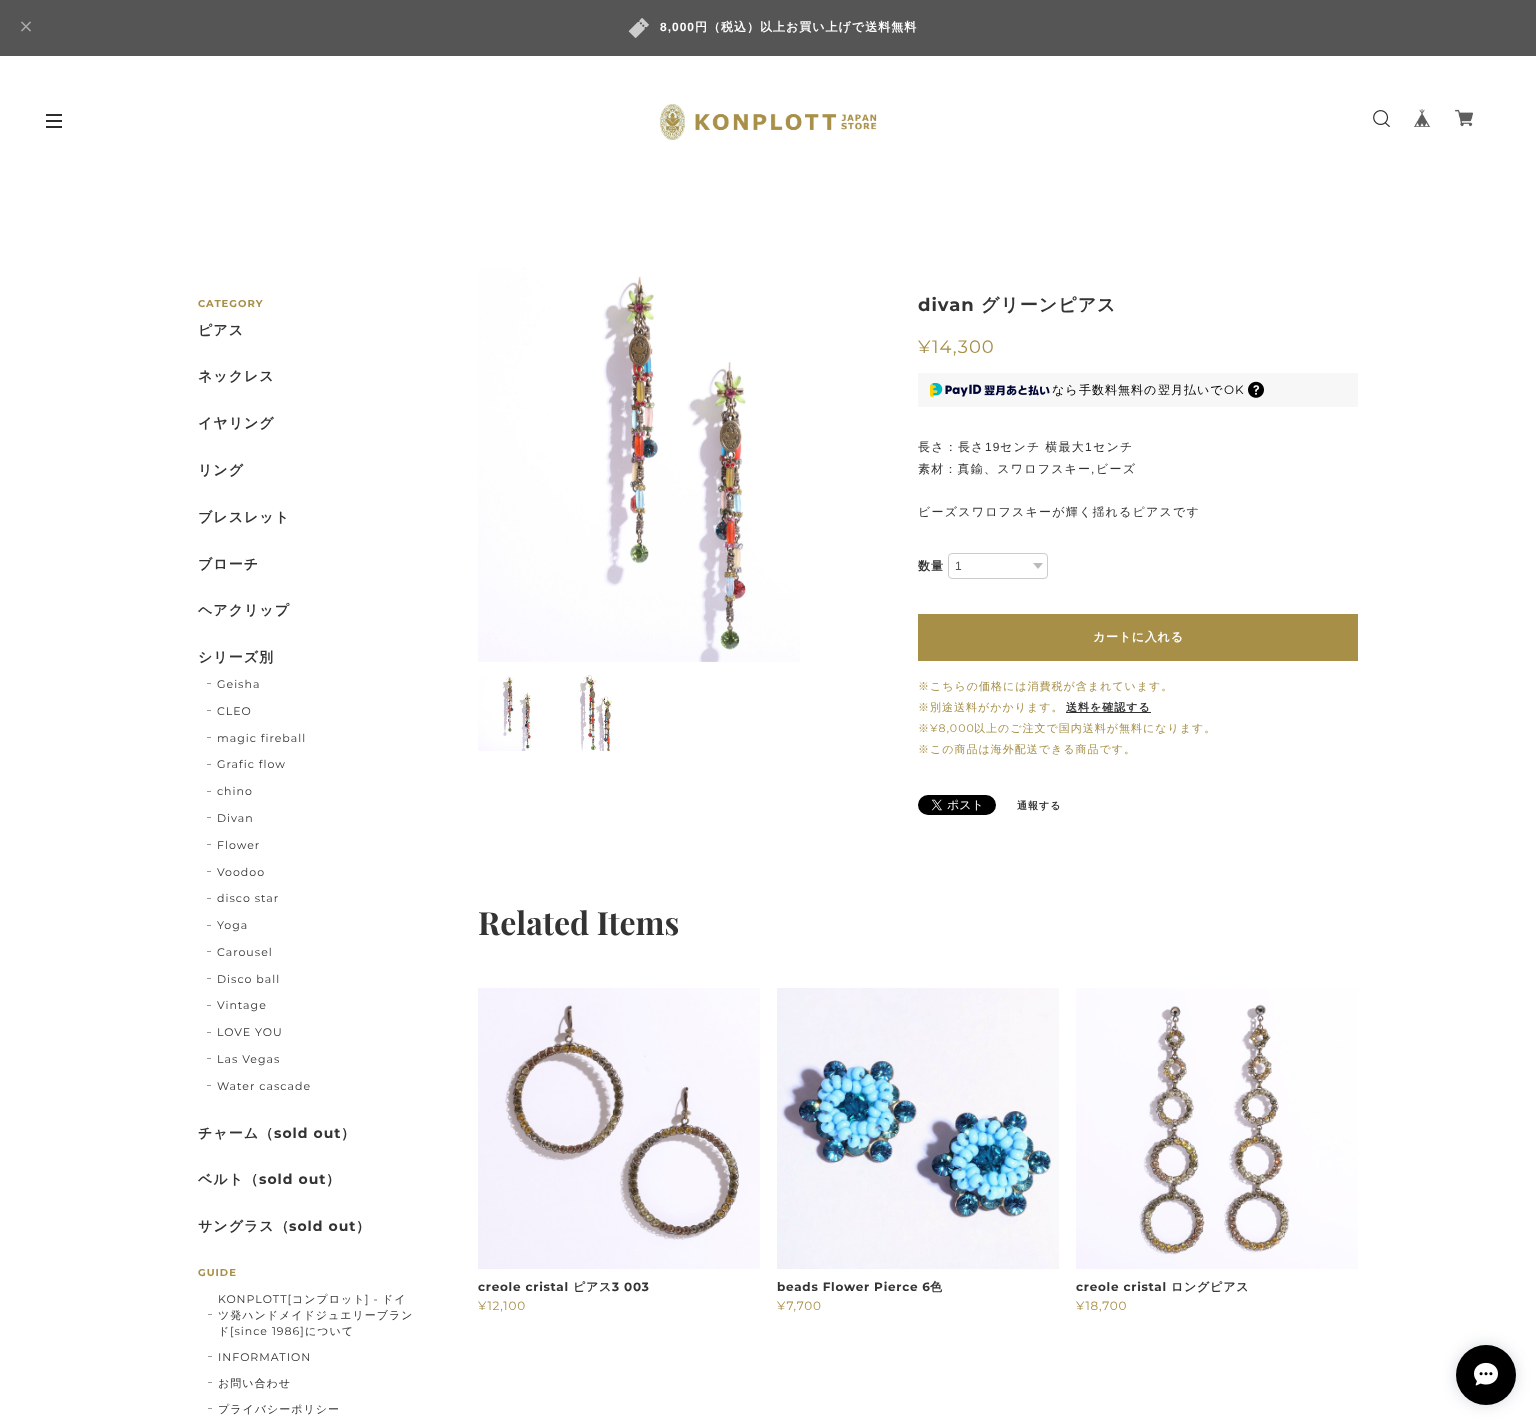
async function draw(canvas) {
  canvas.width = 1536;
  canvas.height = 1425;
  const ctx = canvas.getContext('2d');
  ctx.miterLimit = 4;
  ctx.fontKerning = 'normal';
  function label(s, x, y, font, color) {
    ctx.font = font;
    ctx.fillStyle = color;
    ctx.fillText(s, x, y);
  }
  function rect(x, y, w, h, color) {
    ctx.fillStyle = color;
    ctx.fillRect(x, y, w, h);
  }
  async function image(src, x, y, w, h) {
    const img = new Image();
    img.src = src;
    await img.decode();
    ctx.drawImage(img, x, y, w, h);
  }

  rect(0, 0, 1536, 1425, '#fff');
  rect(0, 0, 1536, 56, '#555');
  await image('assets/img1.png', 21, 21, 10, 11);
  await image('assets/img2.png', 628, 18, 21, 20);
  ctx.letterSpacing = '1px';
  label('8,000', 660, 31, 'bold 12px Liberation Sans', '#fff');
  label('円（税込）以上お買い上げで送料無料', 695, 31, 'bold 12px WenQuanYi Zen Hei', '#fff');
  rect(46, 114, 16, 2, '#2c2c2c');
  rect(46, 120, 16, 2, '#2c2c2c');
  rect(46, 126, 16, 2, '#2c2c2c');
  await image('assets/img3.png', 660, 104, 217, 36);
  await image('assets/img4.png', 1373, 110, 17, 17);
  await image('assets/img5.png', 1413, 109, 18, 18);
  await image('assets/img6.png', 1455, 109, 18, 18);
  label('CATEGORY', 198, 307, 'bold 10px Montserrat', '#a78f48');
  label('ピアス', 198, 335, 'bold 14px WenQuanYi Zen Hei', '#333');
  label('ネックレス', 198, 381, 'bold 14px WenQuanYi Zen Hei', '#333');
  label('イヤリング', 198, 428, 'bold 14px WenQuanYi Zen Hei', '#333');
  label('リング', 198, 475, 'bold 14px WenQuanYi Zen Hei', '#333');
  label('ブレスレット', 198, 522, 'bold 14px WenQuanYi Zen Hei', '#333');
  label('ブローチ', 198, 569, 'bold 14px WenQuanYi Zen Hei', '#333');
  label('ヘアクリップ', 198, 615, 'bold 14px WenQuanYi Zen Hei', '#333');
  label('シリーズ別', 198, 662, 'bold 14px WenQuanYi Zen Hei', '#333');
  rect(207, 683, 4, 1, '#999');
  label('Geisha', 217, 688, '11px Montserrat', '#333');
  rect(207, 710, 4, 1, '#999');
  label('CLEO', 217, 715, '11px Montserrat', '#333');
  rect(207, 737, 4, 1, '#999');
  label('magic fireball', 217, 742, '11px Montserrat', '#333');
  rect(207, 764, 4, 1, '#999');
  label('Grafic flow', 217, 768, '11px Montserrat', '#333');
  rect(207, 791, 4, 1, '#999');
  label('chino', 217, 795, '11px Montserrat', '#333');
  rect(207, 817, 4, 1, '#999');
  label('Divan', 217, 822, '11px Montserrat', '#333');
  rect(207, 844, 4, 1, '#999');
  label('Flower', 217, 849, '11px Montserrat', '#333');
  rect(207, 871, 4, 1, '#999');
  label('Voodoo', 217, 876, '11px Montserrat', '#333');
  rect(207, 898, 4, 1, '#999');
  label('disco star', 217, 902, '11px Montserrat', '#333');
  rect(207, 925, 4, 1, '#999');
  label('Yoga', 217, 929, '11px Montserrat', '#333');
  rect(207, 951, 4, 1, '#999');
  label('Carousel', 217, 956, '11px Montserrat', '#333');
  rect(207, 978, 4, 1, '#999');
  label('Disco ball', 217, 983, '11px Montserrat', '#333');
  rect(207, 1005, 4, 1, '#999');
  label('Vintage', 217, 1009, '11px Montserrat', '#333');
  rect(207, 1032, 4, 1, '#999');
  label('LOVE YOU', 217, 1036, '11px Montserrat', '#333');
  rect(207, 1058, 4, 1, '#999');
  label('Las Vegas', 217, 1063, '11px Montserrat', '#333');
  rect(207, 1085, 4, 1, '#999');
  label('Water cascade', 217, 1090, '11px Montserrat', '#333');
  label('チャーム（', 198, 1138, 'bold 14px WenQuanYi Zen Hei', '#333');
  label('sold out', 274, 1138, 'bold 14px Montserrat', '#333');
  label('）', 341, 1138, 'bold 14px WenQuanYi Zen Hei', '#333');
  label('ベルト（', 198, 1184, 'bold 14px WenQuanYi Zen Hei', '#333');
  label('sold out', 259, 1184, 'bold 14px Montserrat', '#333');
  label('）', 326, 1184, 'bold 14px WenQuanYi Zen Hei', '#333');
  label('サングラス（', 198, 1231, 'bold 14px WenQuanYi Zen Hei', '#333');
  label('sold out', 289, 1231, 'bold 14px Montserrat', '#333');
  label('）', 356, 1231, 'bold 14px WenQuanYi Zen Hei', '#333');
  label('GUIDE', 198, 1276, 'bold 10px Montserrat', '#a78f48');
  label('KONPLOTT[', 218, 1303, '11px Montserrat', '#333');
  label('コンプロット', 292, 1303, '500 11px WenQuanYi Zen Hei', '#333');
  label('] -', 365, 1303, '11px Montserrat', '#333');
  label('ドイ', 382, 1303, '500 11px WenQuanYi Zen Hei', '#333');
  rect(208, 1314, 4, 1, '#999');
  label('ツ発ハンドメイドジュエリーブラン', 218, 1319, '500 11px WenQuanYi Zen Hei', '#333');
  label('ド', 218, 1335, '500 11px WenQuanYi Zen Hei', '#333');
  label('[since 1986]', 230, 1335, '11px Montserrat', '#333');
  label('について', 305, 1335, '500 11px WenQuanYi Zen Hei', '#333');
  rect(208, 1356, 4, 1, '#999');
  label('INFORMATION', 218, 1361, '11px Montserrat', '#333');
  rect(208, 1382, 4, 1, '#999');
  label('お問い合わせ', 218, 1387, '500 11px WenQuanYi Zen Hei', '#333');
  rect(208, 1408, 4, 1, '#999');
  label('プライバシーポリシー', 218, 1413, '500 11px WenQuanYi Zen Hei', '#333');
  await image('assets/img7.png', 478, 268, 322, 394);
  await image('assets/img8.png', 478, 676, 53, 75);
  await image('assets/img9.png', 580, 675, 32, 76);
  label('divan', 918, 311, 'bold 18px Montserrat', '#333');
  label('グリーンピアス', 981, 311, 'bold 18px WenQuanYi Zen Hei', '#333');
  label('¥14,300', 918, 353, '18px Montserrat', '#a78f48');
  rect(918, 373, 440, 34, '#f7f7f7');
  await image('assets/img10.png', 930, 383, 120, 14);
  label('なら', 1052, 394, '500 12px WenQuanYi Zen Hei', '#000');
  label('手数料無料の', 1079, 394, '500 12px WenQuanYi Zen Hei', '#000');
  label('翌月払いで', 1158, 394, '500 12px WenQuanYi Zen Hei', '#000');
  label('OK', 1224, 394, '12px Montserrat', '#000');
  await image('assets/img11.png', 1248, 381, 16, 17);
  ctx.letterSpacing = '1.2px';
  label('長さ：長さ', 918, 451, '500 12px WenQuanYi Zen Hei', '#333');
  label('19', 985, 451, '12px Liberation Sans', '#333');
  label('センチ 横最大', 1000, 451, '500 12px WenQuanYi Zen Hei', '#333');
  label('1', 1085, 451, '12px Liberation Sans', '#333');
  label('センチ', 1093, 451, '500 12px WenQuanYi Zen Hei', '#333');
  label('素材：真鍮、スワロフスキー ビーズ', 918, 473, '500 12px WenQuanYi Zen Hei', '#333');
  label(',', 1091, 473, '12px Liberation Sans', '#333');
  label('ビーズスワロフスキーが輝く揺れるピアスです', 918, 516, '500 12px WenQuanYi Zen Hei', '#333');
  ctx.letterSpacing = '1px';
  label('数量', 918, 570, 'bold 12px WenQuanYi Zen Hei', '#333');
  await image('assets/img12.png', 1033, 563, 10, 6);
  ctx.beginPath();
  ctx.roundRect(948.5, 553.5, 99, 25, 3.5);
  ctx.strokeStyle = '#ccc';
  ctx.stroke();
  ctx.letterSpacing = '0px';
  label('1', 955, 570, '12px Liberation Sans', '#555');
  rect(918, 614, 440, 47, '#a78f48');
  ctx.letterSpacing = '0.75px';
  label('カートに入れる', 1093, 641, 'bold 12px WenQuanYi Zen Hei', '#fff');
  ctx.letterSpacing = '1px';
  label('※こちらの価格には消費税が含まれています。', 918, 690, '500 11px WenQuanYi Zen Hei', '#a78f48');
  label('※別途送料がかかります。', 918, 711, '500 11px WenQuanYi Zen Hei', '#a78f48');
  rect(1066, 712, 85, 1, '#333');
  label('送料を確認する', 1066, 711, 'bold 11px WenQuanYi Zen Hei', '#333');
  label('※', 918, 732, '500 11px WenQuanYi Zen Hei', '#a78f48');
  label('¥8,000', 930, 732, '11px Montserrat', '#a78f48');
  label('以上のご注文で国内送料が無料になります。', 974, 732, '500 11px WenQuanYi Zen Hei', '#a78f48');
  label('※この商品は海外配送できる商品です。', 918, 753, '500 11px WenQuanYi Zen Hei', '#a78f48');
  await image('assets/img13.png', 918, 795, 78, 20);
  label('通報する', 1017, 809, 'bold 10px WenQuanYi Zen Hei', '#333');
  ctx.letterSpacing = '0px';
  label('Related Items', 478, 935, 'bold 32px Playfair Display', '#333');
  await image('assets/img14.png', 478, 988, 282, 281);
  ctx.letterSpacing = '0.75px';
  label('creole cristal', 478, 1291, 'bold 12px Montserrat', '#333');
  label('ピアス', 573, 1291, 'bold 12px WenQuanYi Zen Hei', '#333');
  label('3 003', 612, 1291, 'bold 12px Montserrat', '#333');
  label('¥12,100', 478, 1310, '12px Montserrat', '#a78f48');
  await image('assets/img15.png', 777, 988, 282, 281);
  label('beads Flower Pierce 6', 777, 1291, 'bold 12px Montserrat', '#333');
  label('色', 930, 1291, 'bold 12px WenQuanYi Zen Hei', '#333');
  label('¥7,700', 777, 1310, '12px Montserrat', '#a78f48');
  await image('assets/img16.png', 1076, 988, 282, 281);
  label('creole cristal', 1076, 1291, 'bold 12px Montserrat', '#333');
  label('ロングピアス', 1171, 1291, 'bold 12px WenQuanYi Zen Hei', '#333');
  label('¥18,700', 1076, 1310, '12px Montserrat', '#a78f48');
  ctx.fillStyle = '#33425833';
  ctx.filter = 'blur(7.5px)';
  ctx.beginPath();
  ctx.roundRect(1456, 1345, 60, 60, 30);
  ctx.fill();
  ctx.filter = 'none';
  ctx.fillStyle = '#000';
  ctx.beginPath();
  ctx.arc(1486, 1375, 30, 0, 2 * Math.PI);
  ctx.fill();
  await image('assets/img17.png', 1474, 1362, 24, 24);
}

draw(document.querySelector('canvas'));
